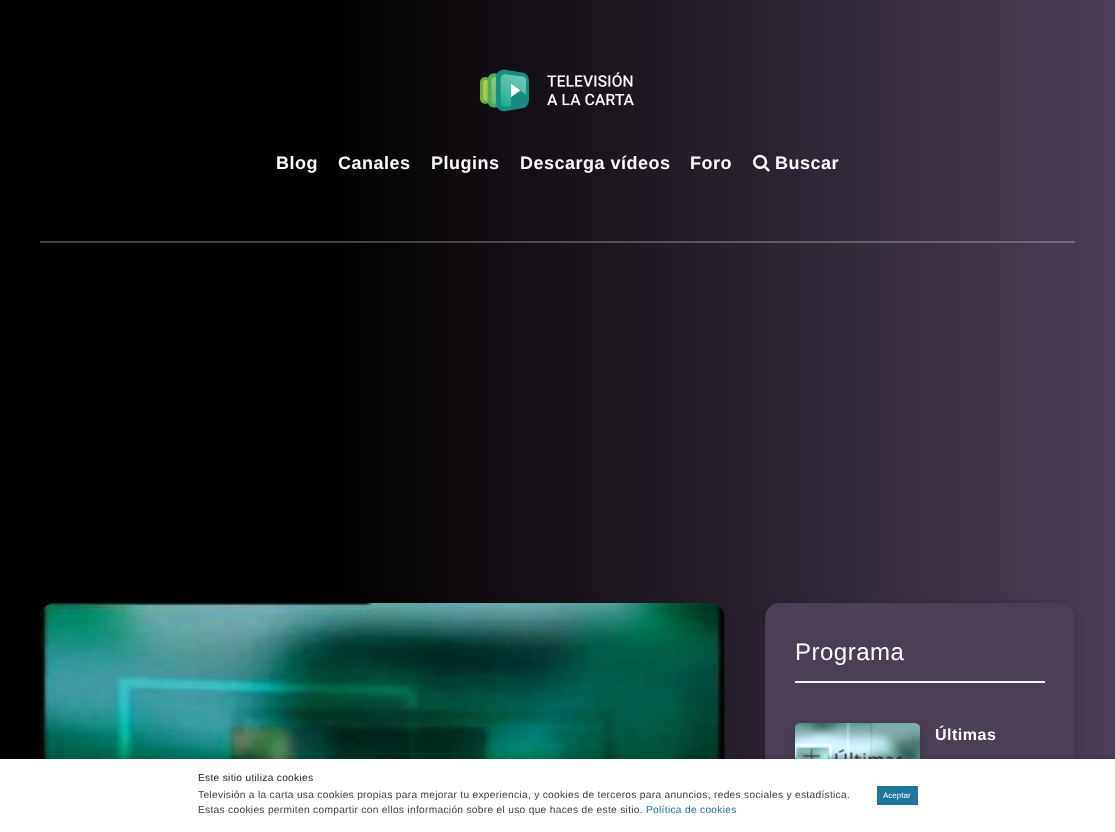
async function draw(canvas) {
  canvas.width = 1115;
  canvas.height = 832;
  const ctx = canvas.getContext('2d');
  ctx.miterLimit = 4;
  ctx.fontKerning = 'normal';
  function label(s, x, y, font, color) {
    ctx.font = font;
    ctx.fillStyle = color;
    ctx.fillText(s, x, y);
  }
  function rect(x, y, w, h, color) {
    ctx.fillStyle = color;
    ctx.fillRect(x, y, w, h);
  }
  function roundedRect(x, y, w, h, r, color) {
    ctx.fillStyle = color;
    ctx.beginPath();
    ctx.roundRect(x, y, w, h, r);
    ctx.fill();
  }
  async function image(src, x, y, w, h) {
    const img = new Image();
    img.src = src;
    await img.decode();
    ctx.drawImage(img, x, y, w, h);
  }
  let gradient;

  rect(0, 0, 1115, 832, '#fff');
  gradient = ctx.createLinearGradient(0, 416, 1115, 416);
  gradient.addColorStop(0.3, '#020000');
  gradient.addColorStop(1, '#4b3f56');
  ctx.fillStyle = gradient;
  ctx.fillRect(0, 0, 1115, 759);
  gradient = ctx.createLinearGradient(0, 416, 1115, 416);
  gradient.addColorStop(0.3, '#414040');
  gradient.addColorStop(1, '#786f80');
  ctx.fillStyle = gradient;
  ctx.fillRect(40, 241, 1035, 2);
  await image('assets/img1.png', 480, 69, 154, 43);
  ctx.letterSpacing = '0.5px';
  label('Blog', 276, 169, 'bold 18px Liberation Sans', '#fff');
  label('Canales', 338, 169, 'bold 18px Liberation Sans', '#fff');
  label('Plugins', 431, 169, 'bold 18px Liberation Sans', '#fff');
  label('Descarga vídeos', 520, 169, 'bold 18px Liberation Sans', '#fff');
  label('Foro', 690, 169, 'bold 18px Liberation Sans', '#fff');
  await image('assets/img2.png', 753, 154, 17, 18);
  label('Buscar', 775, 169, 'bold 18px Liberation Sans', '#fff');
  ctx.fillStyle = '#00000026';
  ctx.filter = 'blur(3px)';
  ctx.beginPath();
  ctx.roundRect(40, 603, 685, 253, 15);
  ctx.fill();
  ctx.filter = 'none';
  roundedRect(40, 603, 685, 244, 15, '#4b3f56');
  await image('assets/img3.png', 40, 603, 685, 156);
  ctx.fillStyle = '#00000026';
  ctx.filter = 'blur(3px)';
  ctx.beginPath();
  ctx.roundRect(765, 603, 310, 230, 15);
  ctx.fill();
  ctx.filter = 'none';
  roundedRect(765, 603, 310, 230, 15, '#4b3f56');
  label('Programa', 795, 660, '24px Liberation Sans', '#fff');
  rect(795, 681, 250, 2, '#f4f4f4');
  ctx.fillStyle = '#070a1933';
  ctx.filter = 'blur(6px)';
  ctx.beginPath();
  ctx.roundRect(796, 727, 123, 78, 3);
  ctx.fill();
  ctx.filter = 'none';
  await image('assets/img4.png', 795, 723, 125, 36);
  label('Últimas', 935, 740, 'bold 16px Liberation Sans', '#fff');
  ctx.fillStyle = '#0000001a';
  ctx.filter = 'blur(2.5px)';
  ctx.beginPath();
  ctx.rect(0, 756, 1115, 73);
  ctx.fill();
  ctx.filter = 'none';
  rect(0, 759, 1115, 73, '#fff');
  ctx.letterSpacing = '0.3px';
  label('Este sitio utiliza cookies', 198, 781, '10.2px Liberation Sans', '#222');
  label('Televisión a la carta usa cookies propias para mejorar tu experiencia, y cookies de terceros para anuncios, redes sociales y estadística.', 198, 798, '10.2px Liberation Sans', '#404040');
  label('Estas cookies permiten compartir con ellos información sobre el uso que haces de este sitio.', 198, 813, '10.2px Liberation Sans', '#404040');
  label('Política de cookies', 646, 813, '10.2px Liberation Sans', '#21759b');
  rect(877, 786, 41, 19, '#21759b');
  ctx.letterSpacing = '0px';
  label('Aceptar', 883, 798, '8px Liberation Sans', '#fff');
}

draw(document.querySelector('canvas'));
